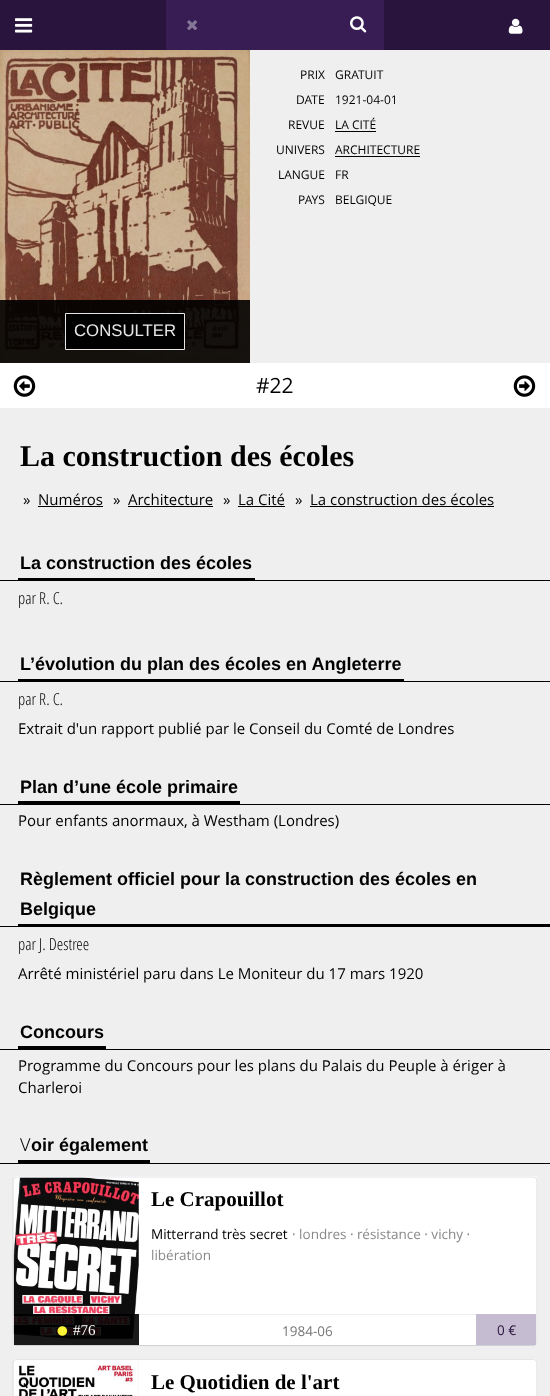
async function draw(canvas) {
  canvas.width = 550;
  canvas.height = 1396;
  const ctx = canvas.getContext('2d');
  ctx.miterLimit = 4;
  ctx.fontKerning = 'normal';
  function label(s, x, y, font, color) {
    ctx.font = font;
    ctx.fillStyle = color;
    ctx.fillText(s, x, y);
  }
  function rect(x, y, w, h, color) {
    ctx.fillStyle = color;
    ctx.fillRect(x, y, w, h);
  }
  function roundedRect(x, y, w, h, r, color) {
    ctx.fillStyle = color;
    ctx.beginPath();
    ctx.roundRect(x, y, w, h, r);
    ctx.fill();
  }
  async function image(src, x, y, w, h) {
    const img = new Image();
    img.src = src;
    await img.decode();
    ctx.drawImage(img, x, y, w, h);
  }
  let path;

  rect(0, 0, 550, 1396, '#efefef');
  rect(0, 0, 550, 50, '#29143d');
  await image('assets/img1.png', 15, 18, 18, 15);
  rect(166, 0, 218, 50, '#371d53');
  await image('assets/img2.png', 187, 20, 10, 10);
  await image('assets/img3.png', 350, 16, 17, 17);
  await image('assets/img4.png', 508, 18, 15, 16);
  label('PRIX', 300, 79, '12px Open Sans', '#000');
  label('GRATUIT', 335, 79, '12px Open Sans', '#000');
  label('DATE', 296, 104, '12px Open Sans', '#000');
  label('1921-04-01', 335, 104, '12px Open Sans', '#000');
  label('REVUE', 288, 129, '12px Open Sans', '#000');
  label('LA CITÉ', 335, 129, '12px Open Sans', '#000');
  rect(335, 131, 41, 1, '#000');
  label('UNIVERS', 276, 154, '12px Open Sans', '#000');
  label('ARCHITECTURE', 335, 154, '12px Open Sans', '#000');
  rect(335, 156, 85, 1, '#000');
  label('LANGUE', 278, 179, '12px Open Sans', '#000');
  label('FR', 335, 179, '12px Open Sans', '#000');
  label('PAYS', 298, 204, '12px Open Sans', '#000');
  label('BELGIQUE', 335, 204, '12px Open Sans', '#000');
  await image('assets/img5.png', 0, 50, 250, 313);
  rect(0, 300, 250, 63, '#000000e6');
  ctx.beginPath();
  ctx.rect(65.5, 313.5, 119, 36);
  ctx.fill();
  ctx.strokeStyle = '#e6e6e6';
  ctx.stroke();
  label('CONSULTER', 74, 336, '16.75px Liberation Sans', '#e6e6e6');
  rect(0, 363, 550, 45, '#fff');
  await image('assets/img6.png', 13, 375, 23, 22);
  label('#22', 256, 393, '21px Open Sans', '#000');
  await image('assets/img7.png', 513, 375, 23, 22);
  label('La construction des écoles', 20, 466, 'bold 30px Liberation Serif', '#000');
  label('»', 23, 505, '15px Open Sans', '#000');
  label('Numéros', 38, 505, '15px Open Sans', '#000');
  rect(38, 506, 65, 1, '#000');
  label('»', 113, 505, '15px Open Sans', '#000');
  label('Architecture', 128, 505, '15px Open Sans', '#000');
  rect(128, 506, 85, 1, '#000');
  label('»', 223, 505, '15px Open Sans', '#000');
  label('La Cité', 238, 505, '15px Open Sans', '#000');
  rect(238, 506, 47, 1, '#000');
  label('»', 295, 505, '15px Open Sans', '#000');
  label('La construction des écoles', 310, 505, '15px Open Sans', '#000');
  rect(310, 506, 184, 1, '#000');
  rect(0, 580, 550, 1, '#000');
  rect(18, 578, 237, 2, '#000');
  label('La construction des écoles', 20, 569, 'bold 18px Liberation Sans', '#000');
  label('par R. C.', 18, 604, '300 16.5px Open Sans', '#000');
  rect(0, 681, 550, 1, '#000');
  rect(18, 679, 386, 2, '#000');
  label('L’évolution du plan des écoles en Angleterre', 20, 670, 'bold 18px Liberation Sans', '#000');
  label('par R. C.', 18, 705, '300 16.5px Open Sans', '#000');
  label('Extrait d\'un rapport publié par le Conseil du Comté de Londres', 18, 734, '15px Open Sans', '#000');
  rect(0, 804, 550, 1, '#000');
  rect(18, 801, 222, 3, '#000');
  label('Plan d’une école primaire', 20, 793, 'bold 18px Liberation Sans', '#000');
  label('Pour enfants anormaux, à Westham (Londres)', 18, 826, '15px Open Sans', '#000');
  rect(0, 926, 18, 1, '#000');
  rect(18, 924, 532, 3, '#000');
  label('Règlement officiel pour la construction des écoles en', 20, 885, 'bold 18px Liberation Sans', '#000');
  label('Belgique', 20, 915, 'bold 18px Liberation Sans', '#000');
  label('par J. Destree', 18, 950, '300 16.5px Open Sans', '#000');
  label('Arrêté ministériel paru dans Le Moniteur du 17 mars 1920', 18, 979, '15px Open Sans', '#000');
  rect(0, 1049, 550, 1, '#000');
  rect(18, 1046, 88, 3, '#000');
  label('Concours', 20, 1038, 'bold 18px Liberation Sans', '#000');
  label('Programme du Concours pour les plans du Palais du Peuple à ériger à', 18, 1071, '15px Open Sans', '#000');
  label('Charleroi', 18, 1093, '15px Open Sans', '#000');
  rect(0, 1163, 550, 1, '#000');
  rect(18, 1160, 132, 3, '#000');
  label('V', 20, 1151, '300 18px Noto Sans', '#000');
  label('oir également', 31, 1151, 'bold 18px Liberation Sans', '#000');
  roundedRect(13, 1176, 525, 170, 4, '#fff');
  await image('assets/img8.png', 13, 1177, 126, 162);
  path = new Path2D('M14 1178L16 1177H534L536 1178');
  ctx.strokeStyle = '#e5e6e9';
  ctx.lineWidth = 1.2;
  ctx.stroke(path);
  path = new Path2D('M536 1178L537 1180V1343L536 1344.5');
  ctx.strokeStyle = '#dfe0e4';
  ctx.stroke(path);
  path = new Path2D('M536 1344.5L534 1345.5H16L14 1344.5');
  ctx.strokeStyle = '#d0d1d5';
  ctx.stroke(path);
  path = new Path2D('M14 1344.5L13 1343V1207V1180L14 1178');
  ctx.strokeStyle = '#dfe0e4';
  ctx.stroke(path);
  label('Le Crapouillot', 151, 1206, 'bold 21px Liberation Serif', '#000');
  label('Mitterrand très secret', 151, 1239, '13.5px Open Sans', '#000');
  label('· londres · résistance · vichy ·', 292, 1239, '13.5px Open Sans', '#888');
  label('libération', 151, 1260, '13.5px Open Sans', '#888');
  rect(14, 1314, 125, 31, '#000000e6');
  await image('assets/img9.png', 57, 1326, 11, 10);
  label('#76', 73, 1335, '15px Liberation Serif', '#fff');
  rect(139, 1314, 337, 1, '#eee');
  label('1984-06', 282, 1336, '13.5px Open Sans', '#777');
  rect(476, 1314, 60, 31, '#c6bcd1');
  label('0 €', 497, 1335, '13.5px Open Sans', '#29143d');
  roundedRect(13, 1359, 525, 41, 4, '#fff');
  await image('assets/img10.png', 18, 1360, 121, 36);
  path = new Path2D('M14 1360.5L16 1359.5H534L536 1360.5');
  ctx.strokeStyle = '#e5e6e9';
  ctx.stroke(path);
  path = new Path2D('M536 1360.5L537 1362.5V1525.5L536 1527');
  ctx.strokeStyle = '#dfe0e4';
  ctx.stroke(path);
  path = new Path2D('M14 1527L13 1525.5V1389.5V1362.5L14 1360.5');
  ctx.stroke(path);
  label('Le Quotidien de l\'art', 151, 1389, 'bold 21px Liberation Serif', '#000');
}

draw(document.querySelector('canvas'));
